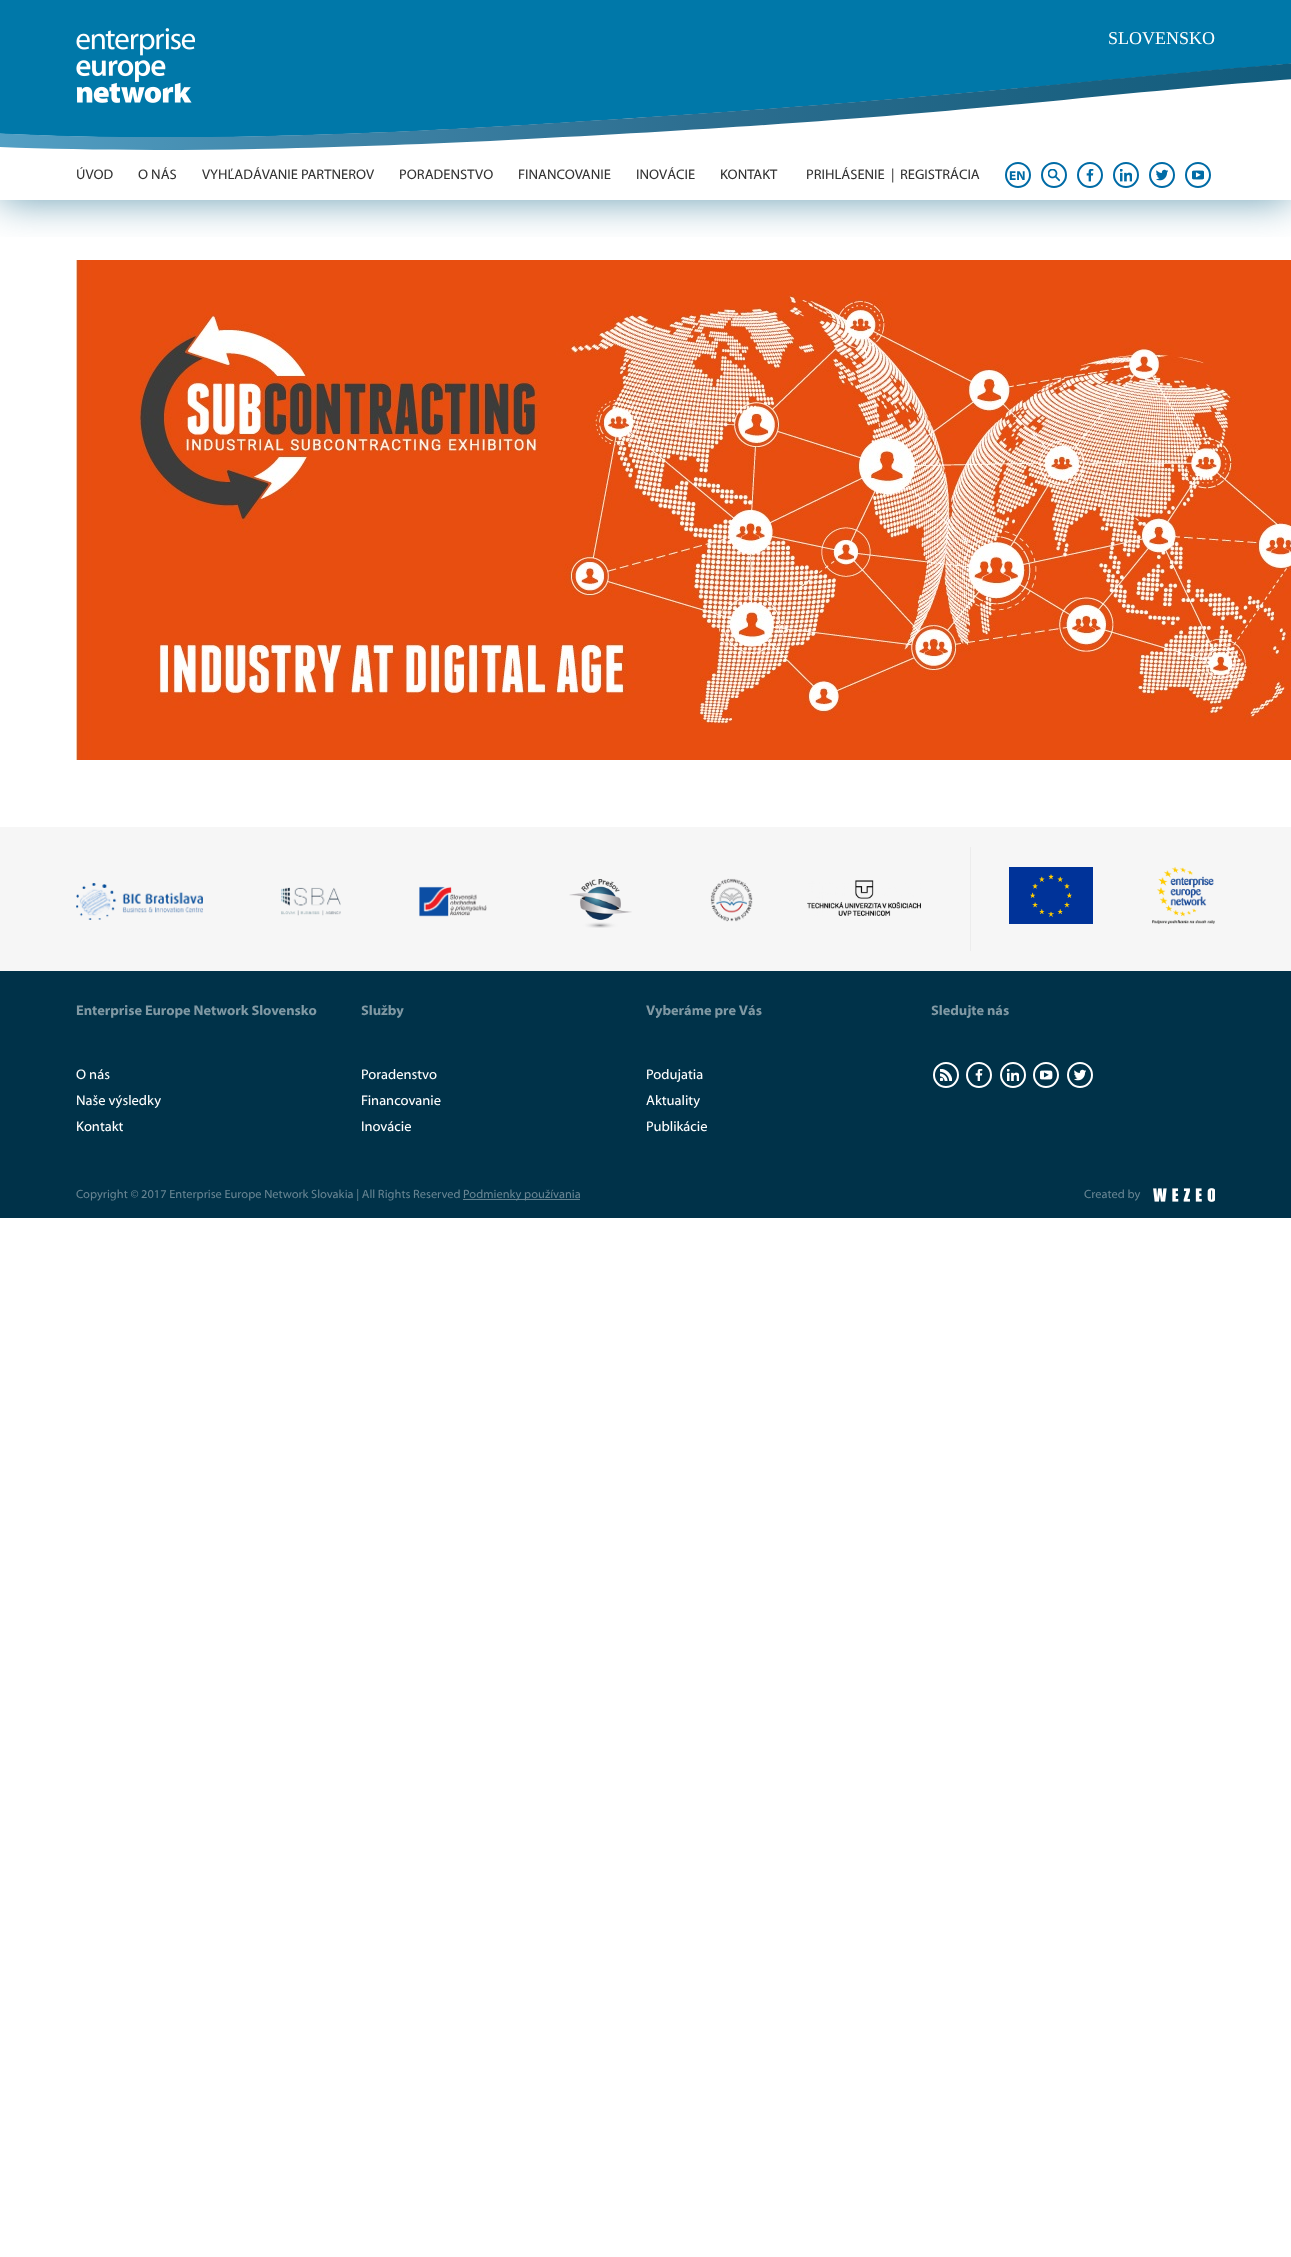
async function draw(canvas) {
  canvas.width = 1291;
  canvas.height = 2257;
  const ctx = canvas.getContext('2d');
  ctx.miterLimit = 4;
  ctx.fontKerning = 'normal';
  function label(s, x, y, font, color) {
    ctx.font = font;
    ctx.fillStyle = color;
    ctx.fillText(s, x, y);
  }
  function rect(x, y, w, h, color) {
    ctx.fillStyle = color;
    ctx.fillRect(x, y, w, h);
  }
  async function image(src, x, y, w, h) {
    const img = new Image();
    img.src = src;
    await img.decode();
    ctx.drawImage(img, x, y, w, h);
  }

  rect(0, 0, 1291, 2257, '#fff');
  await image('assets/img8.png', 76, 260, 1215, 500);
  ctx.save();
  ctx.beginPath();
  ctx.rect(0, 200, 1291, 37);
  ctx.clip();
  ctx.fillStyle = '#00597d99';
  ctx.filter = 'blur(20px)';
  ctx.beginPath();
  ctx.rect(0, 0, 1291, 200);
  ctx.fill();
  ctx.filter = 'none';
  ctx.restore();
  await image('assets/img1.png', 0, 0, 1291, 150);
  await image('assets/img2.png', 76, 28, 119, 75);
  label('SLOVENSKO', 1108, 44, '18px Liberation Serif', '#fff');
  label('ÚVOD', 76, 179, '14px Myriad', '#333');
  label('O NÁS', 138, 179, '14px Myriad', '#333');
  label('VYHĽADÁVANIE PARTNEROV', 202, 179, '14px Myriad', '#333');
  label('PORADENSTVO', 399, 179, '14px Myriad', '#333');
  label('FINANCOVANIE', 518, 179, '14px Myriad', '#333');
  label('INOVÁCIE', 636, 179, '14px Myriad', '#333');
  label('KONTAKT', 720, 179, '14px Myriad', '#333');
  label('PRIHLÁSENIE', 806, 179, '14px Myriad', '#333');
  label('|', 891, 179, '14px Myriad', '#333');
  label('REGISTRÁCIA', 900, 179, '14px Myriad', '#333');
  ctx.beginPath();
  ctx.arc(1018, 175, 12, 0, 2 * Math.PI);
  ctx.strokeStyle = '#006ba6';
  ctx.lineWidth = 2;
  ctx.stroke();
  label('EN', 1009, 180, 'bold 13px Myriad', '#006ba6');
  ctx.beginPath();
  ctx.arc(1054, 175, 12, 0, 2 * Math.PI);
  ctx.stroke();
  await image('assets/img3.png', 1048, 169, 12, 13);
  ctx.beginPath();
  ctx.arc(1090, 175, 12, 0, 2 * Math.PI);
  ctx.stroke();
  await image('assets/img4.png', 1086, 169, 8, 13);
  ctx.beginPath();
  ctx.arc(1126, 175, 12, 0, 2 * Math.PI);
  ctx.stroke();
  await image('assets/img5.png', 1120, 169, 12, 13);
  ctx.beginPath();
  ctx.arc(1162, 175, 12, 0, 2 * Math.PI);
  ctx.stroke();
  await image('assets/img6.png', 1156, 169, 12, 12);
  ctx.beginPath();
  ctx.arc(1198, 175, 12, 0, 2 * Math.PI);
  ctx.stroke();
  await image('assets/img7.png', 1192, 170, 12, 10);
  rect(0, 827, 1291, 144, '#f6f6f6');
  await image('assets/img9.png', 76, 883, 127, 37);
  await image('assets/img10.png', 281, 887, 60, 29);
  await image('assets/img11.png', 419, 886, 68, 31);
  await image('assets/img12.png', 569, 879, 63, 49);
  await image('assets/img13.png', 710, 878, 43, 44);
  await image('assets/img14.png', 807, 880, 114, 36);
  rect(970, 847, 1, 104, '#ececec');
  await image('assets/img15.png', 1009, 867, 84, 57);
  await image('assets/img16.png', 1152, 867, 63, 57);
  rect(0, 971, 1291, 247, '#003249');
  label('Enterprise Europe Network Slovensko', 76, 1015, 'bold 14px Myriad', '#8099a4');
  label('O nás', 76, 1079, '14px Myriad', '#fff');
  label('Naše výsledky', 76, 1105, '14px Myriad', '#fff');
  label('Kontakt', 76, 1131, '14px Myriad', '#fff');
  label('Služby', 361, 1015, 'bold 14px Myriad', '#8099a4');
  label('Poradenstvo', 361, 1079, '14px Myriad', '#fff');
  label('Financovanie', 361, 1105, '14px Myriad', '#fff');
  label('Inovácie', 361, 1131, '14px Myriad', '#fff');
  label('Vyberáme pre Vás', 646, 1015, 'bold 14px Myriad', '#8099a4');
  label('Podujatia', 646, 1079, '14px Myriad', '#fff');
  label('Aktuality', 646, 1105, '14px Myriad', '#fff');
  label('Publikácie', 646, 1131, '14px Myriad', '#fff');
  label('Sledujte nás', 931, 1015, 'bold 14px Myriad', '#8099a4');
  ctx.beginPath();
  ctx.arc(946, 1075, 12, 0, 2 * Math.PI);
  ctx.strokeStyle = '#fff';
  ctx.stroke();
  await image('assets/img17.png', 940, 1069, 12, 12);
  ctx.beginPath();
  ctx.arc(979, 1075, 12, 0, 2 * Math.PI);
  ctx.stroke();
  await image('assets/img18.png', 975, 1069, 8, 12);
  ctx.beginPath();
  ctx.arc(1013, 1075, 12, 0, 2 * Math.PI);
  ctx.stroke();
  await image('assets/img19.png', 1007, 1069, 12, 12);
  ctx.beginPath();
  ctx.arc(1046, 1075, 12, 0, 2 * Math.PI);
  ctx.stroke();
  await image('assets/img20.png', 1040, 1070, 13, 10);
  ctx.beginPath();
  ctx.arc(1080, 1075, 12, 0, 2 * Math.PI);
  ctx.stroke();
  await image('assets/img21.png', 1074, 1069, 12, 12);
  label('Copyright © 2017 Enterprise Europe Network Slovakia | All Rights Reserved', 76, 1198, '12px Myriad', '#668492');
  rect(463, 1199, 117, 1, '#668492');
  label('Podmienky používania', 463, 1198, '12px Myriad', '#668492');
  label('Created by', 1084, 1198, '12px Myriad', '#668492');
  await image('assets/img22.png', 1153, 1188, 62, 14);
}

draw(document.querySelector('canvas'));
